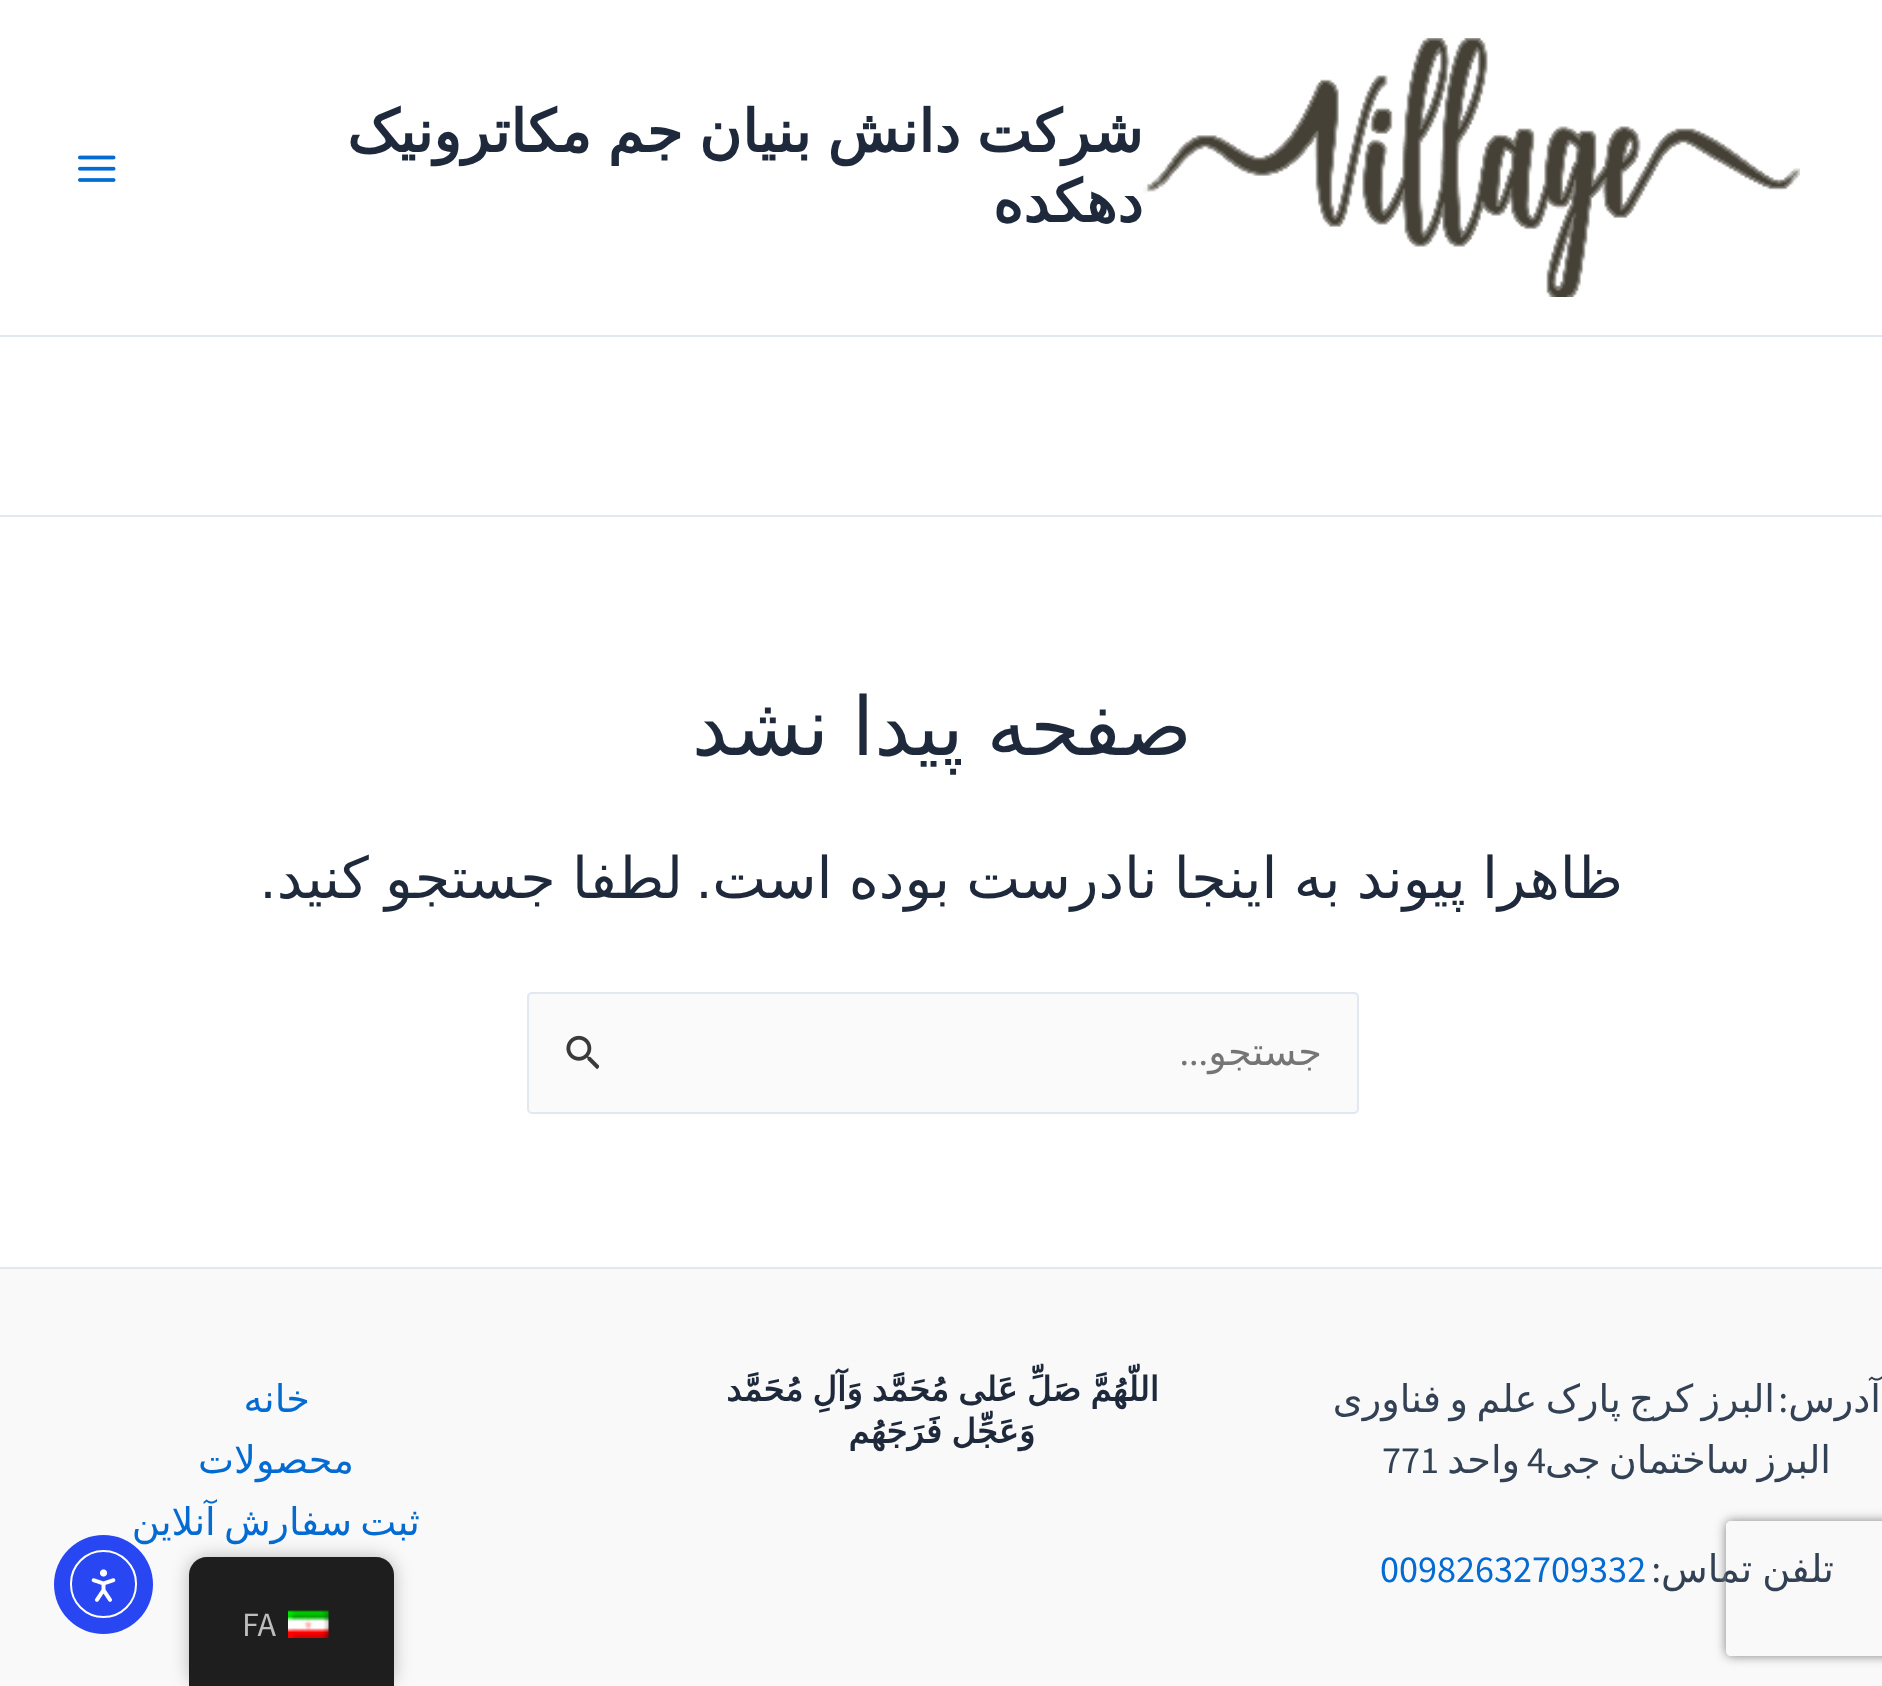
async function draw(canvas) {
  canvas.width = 1882;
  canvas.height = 1686;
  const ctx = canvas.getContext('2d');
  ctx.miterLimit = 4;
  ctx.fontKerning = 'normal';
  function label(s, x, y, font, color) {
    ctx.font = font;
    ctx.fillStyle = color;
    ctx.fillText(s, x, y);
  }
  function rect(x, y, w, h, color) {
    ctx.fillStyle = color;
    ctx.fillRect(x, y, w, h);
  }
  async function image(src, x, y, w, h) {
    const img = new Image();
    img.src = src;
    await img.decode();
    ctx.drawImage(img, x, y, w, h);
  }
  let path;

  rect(0, 0, 1882, 1686, '#fff');
  rect(0, 335, 1882, 2, '#e2e8f0');
  await image('assets/img1.png', 1143, 38, 657, 259);
  ctx.wordSpacing = '-2.5px';
  ctx.direction = 'rtl';
  label('شرکت دانش بنیان جم مکاترونیک', 1143, 152, 'bold 58.5px DejaVu Sans', '#1e293b');
  ctx.wordSpacing = '0px';
  label('دهکده', 1143, 222, 'bold 58.5px DejaVu Sans', '#1e293b');
  await image('assets/img2.png', 78, 155, 38, 27);
  rect(0, 515, 1882, 2, '#e2e8f0');
  ctx.wordSpacing = '-3px';
  label('صفحه پیدا نشد', 1192, 755, '81px DejaVu Sans', '#1e293b');
  ctx.wordSpacing = '-2px';
  label('ظاهرا پیوند به اینجا نادرست بوده است', 1623, 898, '57.4px DejaVu Sans', '#1e293b');
  ctx.wordSpacing = '0px';
  label('.', 712, 898, '57.4px Liberation Sans', '#1e293b');
  ctx.wordSpacing = '-2px';
  label('لطفا جستجو کنید', 683, 898, '57.4px DejaVu Sans', '#1e293b');
  ctx.wordSpacing = '0px';
  label('.', 276, 898, '57.4px Liberation Sans', '#1e293b');
  ctx.fillStyle = '#fafafa';
  ctx.beginPath();
  ctx.roundRect(528, 993, 830, 120, 4);
  ctx.fill();
  ctx.strokeStyle = '#e2e8f0';
  ctx.lineWidth = 2;
  ctx.stroke();
  label('جستجو', 1322, 1065, '38.25px DejaVu Sans', '#757575');
  label('...', 1208, 1065, '38.25px Source Sans Pro', '#757575');
  await image('assets/img3.png', 566, 1035, 33, 35);
  rect(0, 1269, 1882, 417, '#f9f9f9');
  rect(0, 1267, 1882, 2, '#e2e8f0');
  label('آدرس', 1881, 1412, '38.25px DejaVu Sans', '#334155');
  label(':', 1788, 1412, '38.25px Source Sans Pro', '#334155');
  ctx.wordSpacing = '-3.75px';
  label('البرز کرج پارک علم و فناوری', 1775, 1412, '38.25px DejaVu Sans', '#334155');
  ctx.wordSpacing = '-4px';
  label('البرز ساختمان جی', 1831, 1473, '38.25px DejaVu Sans', '#334155');
  ctx.wordSpacing = '0px';
  ctx.direction = 'ltr';
  label('4', 1527, 1473, '38.25px Source Sans Pro', '#334155');
  ctx.direction = 'rtl';
  label('واحد', 1520, 1473, '38.25px DejaVu Sans', '#334155');
  ctx.direction = 'ltr';
  label('771', 1382, 1473, '38.25px Source Sans Pro', '#334155');
  ctx.wordSpacing = '-2px';
  ctx.direction = 'rtl';
  label('تلفن تماس', 1834, 1582, '38.25px DejaVu Sans', '#334155');
  ctx.wordSpacing = '0px';
  label(':', 1661, 1582, '38.25px Source Sans Pro', '#334155');
  ctx.direction = 'ltr';
  label('00982632709332', 1380, 1582, '38.25px Source Sans Pro', '#046bd2');
  ctx.wordSpacing = '-1.5px';
  ctx.direction = 'rtl';
  label('اللّهُمَّ صَلِّ عَلی مُحَمَّد وَآلِ مُحَمَّد', 1159, 1401, 'bold 33.75px DejaVu Sans', '#1e293b');
  label('وَعَجِّل فَرَجَهُم', 1035, 1443, 'bold 33.75px DejaVu Sans', '#1e293b');
  ctx.wordSpacing = '0px';
  label('خانه', 310, 1412, '38.25px DejaVu Sans', '#046bd2');
  label('محصولات', 354, 1473, '38.25px DejaVu Sans', '#046bd2');
  ctx.wordSpacing = '-4px';
  label('ثبت سفارش آنلاین', 420, 1535, '38.25px DejaVu Sans', '#046bd2');
  ctx.save();
  path = new Path2D('M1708 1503H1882V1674H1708ZM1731 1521H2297C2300 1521 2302 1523 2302 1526V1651C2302 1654 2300 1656 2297 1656H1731C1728 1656 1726 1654 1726 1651V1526C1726 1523 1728 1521 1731 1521Z');
  ctx.clip(path, 'evenodd');
  ctx.fillStyle = '#808080';
  ctx.filter = 'blur(5.5px)';
  ctx.beginPath();
  ctx.roundRect(1726, 1521, 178, 135, 5);
  ctx.fill();
  ctx.filter = 'none';
  ctx.restore();
  ctx.fillStyle = '#00000040';
  ctx.filter = 'blur(9px)';
  ctx.beginPath();
  ctx.roundRect(189, 1557, 205, 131, 18);
  ctx.fill();
  ctx.filter = 'none';
  ctx.fillStyle = '#1e1e1e';
  path = new Path2D('M207 1557H376C386 1557 394 1565 394 1575V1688H189V1575C189 1565 197 1557 207 1557Z');
  ctx.fill(path);
  await image('assets/img4.png', 288, 1610, 41, 28);
  ctx.wordSpacing = '0px';
  ctx.direction = 'ltr';
  label('FA', 242, 1636, '34px Source Sans Pro', '#bdbdbd');
  ctx.fillStyle = '#2847f3';
  ctx.beginPath();
  ctx.arc(103.5, 1584.5, 49.5, 0, 2 * Math.PI);
  ctx.fill();
  ctx.beginPath();
  ctx.roundRect(71, 1551, 65, 66, 32.5);
  ctx.strokeStyle = '#fff';
  ctx.stroke();
  await image('assets/img5.png', 91, 1569, 25, 33);
}

draw(document.querySelector('canvas'));
